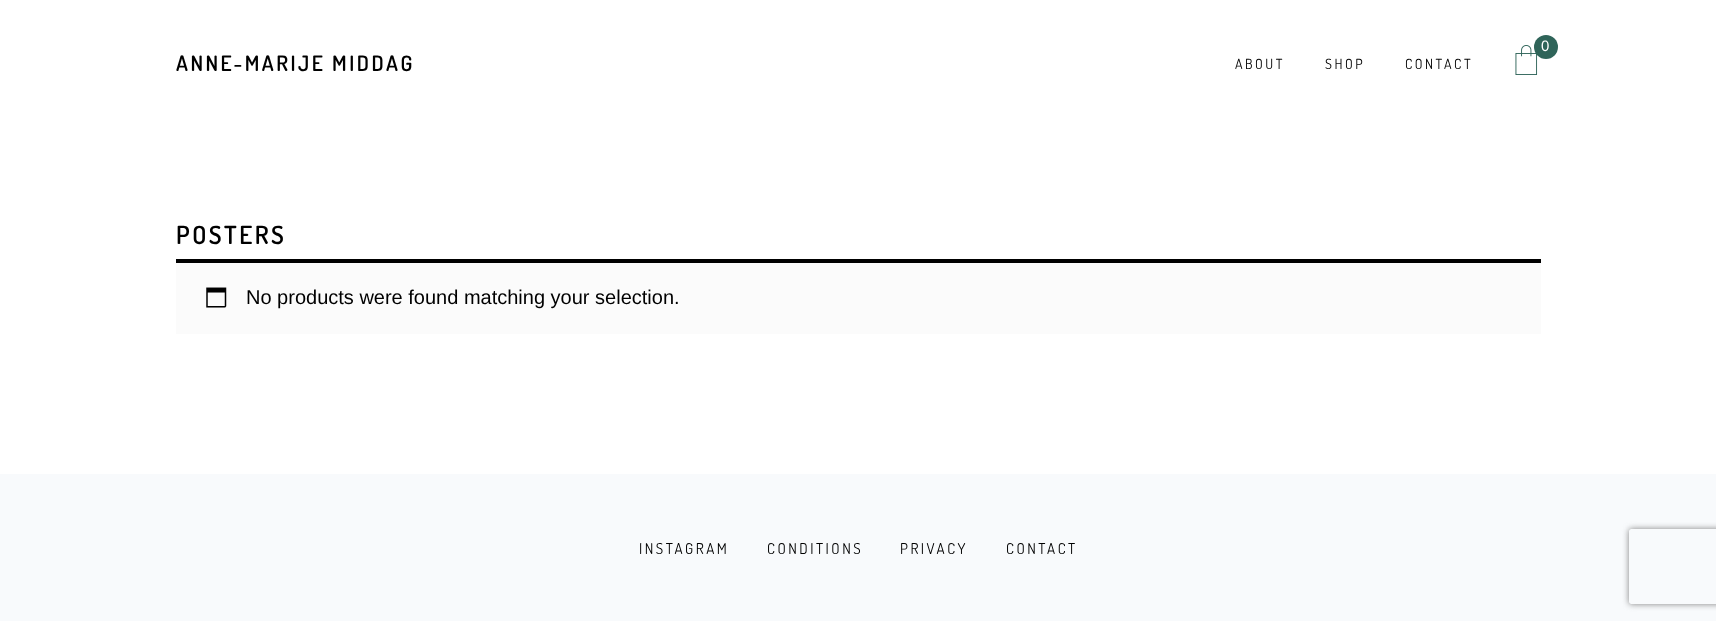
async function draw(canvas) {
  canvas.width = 1716;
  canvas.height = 621;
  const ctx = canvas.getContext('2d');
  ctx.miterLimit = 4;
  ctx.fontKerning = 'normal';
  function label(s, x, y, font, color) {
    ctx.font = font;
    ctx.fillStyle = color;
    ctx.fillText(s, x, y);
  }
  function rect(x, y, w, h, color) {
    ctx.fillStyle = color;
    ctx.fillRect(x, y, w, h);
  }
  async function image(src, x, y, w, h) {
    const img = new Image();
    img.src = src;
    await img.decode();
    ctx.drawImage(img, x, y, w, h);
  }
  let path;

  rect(0, 0, 1716, 621, '#fff');
  await image('assets/img1.png', 1515, 45, 23, 30);
  ctx.fillStyle = '#2f6459';
  ctx.beginPath();
  ctx.arc(1546, 47, 12, 0, 2 * Math.PI);
  ctx.fill();
  label('0', 1541, 51, '15px Liberation Sans', '#fff');
  ctx.letterSpacing = '2.5px';
  label('ANNE-MARIJE MIDDAG', 176, 71, '600 21.25px Dosis', '#000');
  label('ABOUT', 1235, 69, '14px Dosis', '#000');
  label('SHOP', 1325, 69, '14px Dosis', '#000');
  label('CONTACT', 1405, 69, '14px Dosis', '#000');
  label('POSTERS', 176, 244, '600 25px Dosis', '#000');
  rect(176, 263, 1365, 71, '#fbfbfb');
  rect(176, 259, 1365, 4, '#000');
  await image('assets/img2.png', 206, 287, 21, 21);
  ctx.letterSpacing = '0px';
  label('No products were found matching your selection.', 246, 304, '20px Liberation Sans', '#000');
  rect(0, 474, 1716, 147, '#f8fafc');
  ctx.letterSpacing = '2.5px';
  label('INSTAGRAM', 639, 554, '15px Dosis', '#000');
  label('CONDITIONS', 767, 554, '15px Dosis', '#000');
  label('PRIVACY', 900, 554, '15px Dosis', '#000');
  label('CONTACT', 1006, 554, '15px Dosis', '#000');
  ctx.save();
  path = new Path2D('M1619 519H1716V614H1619ZM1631.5 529H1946.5C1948 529 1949 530 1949 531.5V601.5C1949 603 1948 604 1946.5 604H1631.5C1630 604 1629 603 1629 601.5V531.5C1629 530 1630 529 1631.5 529Z');
  ctx.clip(path, 'evenodd');
  ctx.fillStyle = '#808080';
  ctx.filter = 'blur(3px)';
  ctx.beginPath();
  ctx.roundRect(1629, 529, 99, 75, 2.5);
  ctx.fill();
  ctx.filter = 'none';
  ctx.restore();
}

draw(document.querySelector('canvas'));
